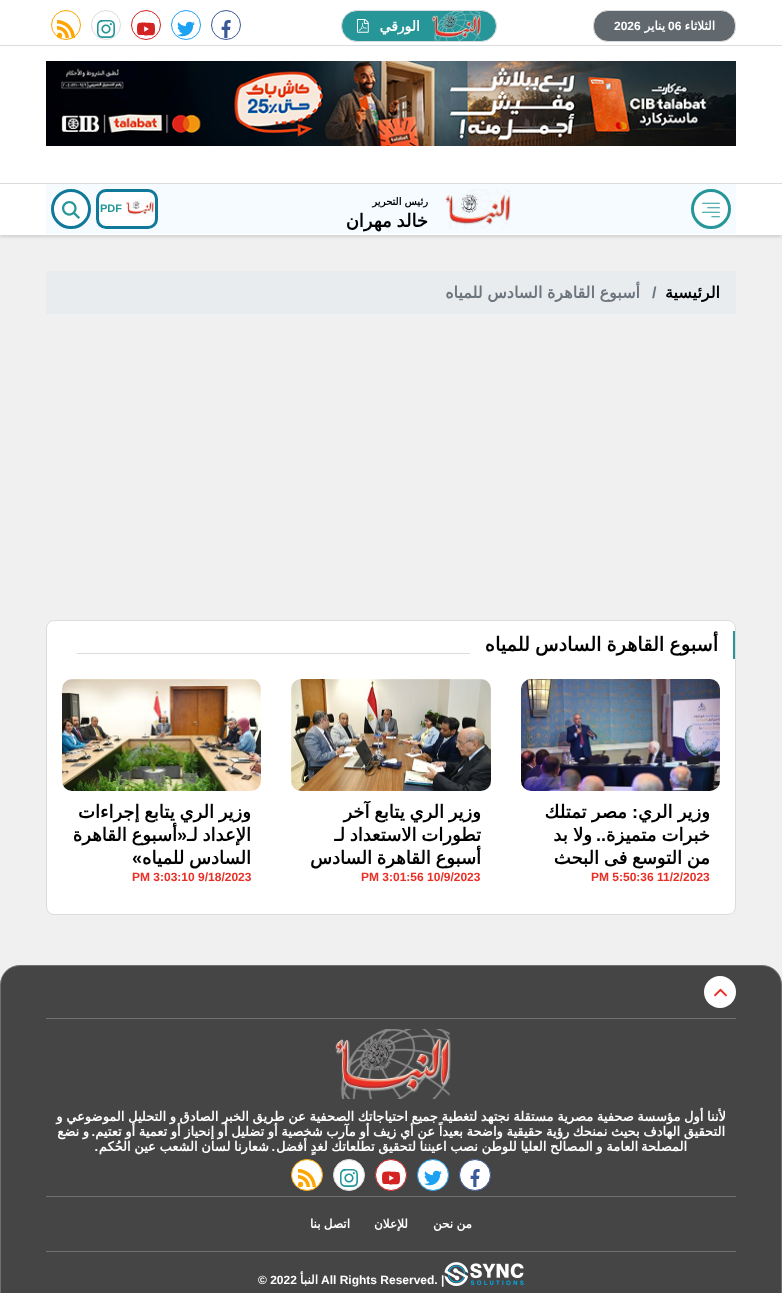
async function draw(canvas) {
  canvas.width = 782;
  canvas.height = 1293;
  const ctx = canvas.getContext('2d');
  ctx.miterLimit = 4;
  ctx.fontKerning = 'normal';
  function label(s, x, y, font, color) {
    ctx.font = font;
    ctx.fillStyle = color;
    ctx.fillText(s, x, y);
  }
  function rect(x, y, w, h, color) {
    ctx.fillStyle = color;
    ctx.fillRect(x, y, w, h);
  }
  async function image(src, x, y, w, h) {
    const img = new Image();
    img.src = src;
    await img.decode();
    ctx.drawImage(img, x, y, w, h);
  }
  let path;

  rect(0, 0, 782, 1293, '#f0f0f0');
  ctx.fillStyle = '#00000012';
  ctx.filter = 'blur(2px)';
  ctx.beginPath();
  ctx.rect(0, 2, 782, 235);
  ctx.fill();
  ctx.filter = 'none';
  rect(0, 0, 782, 235, '#fff');
  rect(0, 45, 782, 1, '#dcdcdc');
  ctx.fillStyle = '#61696e';
  ctx.beginPath();
  ctx.roundRect(593.5, 10.5, 142, 31, 14.5);
  ctx.fill();
  ctx.strokeStyle = '#dcdcdc';
  ctx.stroke();
  ctx.direction = 'rtl';
  label('الثلاثاء', 715, 30, 'bold 12px DejaVu Sans', '#fff');
  ctx.direction = 'ltr';
  label('06', 668, 30, 'bold 12px Liberation Sans', '#fff');
  ctx.direction = 'rtl';
  label('يناير', 665, 30, 'bold 12px DejaVu Sans', '#fff');
  ctx.direction = 'ltr';
  label('2026', 614, 30, 'bold 12px Liberation Sans', '#fff');
  ctx.fillStyle = '#269699';
  ctx.beginPath();
  ctx.roundRect(341.5, 10.5, 155, 31, 15.5);
  ctx.fill();
  ctx.stroke();
  await image('assets/img1.png', 432, 11, 49, 30);
  ctx.direction = 'rtl';
  label('الورقي', 420, 31, 'bold 14px DejaVu Sans', '#fff');
  await image('assets/img2.png', 357, 19, 12, 14);
  ctx.beginPath();
  ctx.arc(226, 25, 14.5, 0, 2 * Math.PI);
  ctx.strokeStyle = '#3b5998';
  ctx.stroke();
  await image('assets/img3.png', 221, 20, 10, 18);
  ctx.beginPath();
  ctx.arc(186, 25, 14.5, 0, 2 * Math.PI);
  ctx.strokeStyle = '#1da1f2';
  ctx.stroke();
  await image('assets/img4.png', 177, 21, 18, 16);
  ctx.beginPath();
  ctx.arc(146, 25, 14.5, 0, 2 * Math.PI);
  ctx.strokeStyle = '#d32323';
  ctx.stroke();
  await image('assets/img5.png', 137, 22, 18, 14);
  ctx.beginPath();
  ctx.arc(106, 25, 14.5, 0, 2 * Math.PI);
  ctx.strokeStyle = '#dcdcdc';
  ctx.stroke();
  await image('assets/img6.png', 97, 20, 18, 18);
  ctx.beginPath();
  ctx.arc(66, 25, 14.5, 0, 2 * Math.PI);
  ctx.strokeStyle = '#ffa500';
  ctx.stroke();
  await image('assets/img7.png', 57, 20, 18, 18);
  await image('assets/img8.png', 46, 61, 690, 85);
  ctx.save();
  ctx.beginPath();
  ctx.rect(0, 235, 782, 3);
  ctx.clip();
  ctx.fillStyle = '#00000012';
  ctx.filter = 'blur(2px)';
  ctx.beginPath();
  ctx.rect(0, 185, 782, 52);
  ctx.fill();
  ctx.filter = 'none';
  ctx.restore();
  rect(0, 183, 782, 1, '#dcdcdc');
  rect(46, 184, 690, 50, '#f5fbff');
  ctx.fillStyle = '#fff';
  ctx.beginPath();
  ctx.arc(711, 209, 18.5, 0, 2 * Math.PI);
  ctx.fill();
  ctx.strokeStyle = '#269699';
  ctx.lineWidth = 3;
  ctx.stroke();
  await image('assets/img9.png', 702, 202, 18, 16);
  await image('assets/img10.png', 445, 189, 66, 40);
  label('رئيس التحرير', 428, 205, 'bold 10px DejaVu Sans', '#000');
  ctx.wordSpacing = '-1px';
  label('خالد مهران', 428, 227, 'bold 18px DejaVu Sans', '#000');
  ctx.fillStyle = '#fff';
  ctx.beginPath();
  ctx.roundRect(97.5, 190.5, 59, 37, 8.5);
  ctx.fill();
  ctx.strokeStyle = '#107999';
  ctx.stroke();
  await image('assets/img11.png', 126, 199, 28, 17);
  ctx.wordSpacing = '0px';
  ctx.direction = 'ltr';
  label('PDF', 100, 212, 'bold 11px Liberation Sans', '#269699');
  ctx.fillStyle = '#fff';
  ctx.beginPath();
  ctx.arc(71, 209, 18.5, 0, 2 * Math.PI);
  ctx.fill();
  ctx.stroke();
  await image('assets/img12.png', 62, 201, 18, 18);
  rect(46, 271, 690, 43, '#e9ecef');
  ctx.direction = 'rtl';
  label('الرئيسية', 720, 298, 'bold 16px DejaVu Sans', '#000');
  ctx.direction = 'ltr';
  label('/', 652, 298, 'bold 16px Liberation Sans', '#6c757d');
  ctx.wordSpacing = '-0.5px';
  ctx.direction = 'rtl';
  label('أسبوع القاهرة السادس للمياه', 640, 298, 'bold 16px DejaVu Sans', '#6c757d');
  ctx.fillStyle = '#fff';
  ctx.beginPath();
  ctx.roundRect(46.5, 620.5, 689, 294, 7.5);
  ctx.fill();
  ctx.strokeStyle = '#dcdcdc';
  ctx.lineWidth = 1;
  ctx.stroke();
  rect(733, 631, 2, 28, '#269699');
  ctx.wordSpacing = '-1px';
  label('أسبوع القاهرة السادس للمياه', 718, 651, 'bold 19.25px DejaVu Sans', '#000');
  rect(77, 653, 393, 1, '#dcdcdc');
  await image('assets/img13.png', 521, 679, 199, 112);
  ctx.wordSpacing = '-0.5px';
  label('وزير الري', 710, 818, 'bold 18px DejaVu Sans', '#000');
  ctx.wordSpacing = '0px';
  label(':', 638, 818, 'bold 18px Liberation Sans', '#000');
  ctx.wordSpacing = '-0.5px';
  label('مصر تمتلك', 627, 818, 'bold 18px DejaVu Sans', '#000');
  label('خبرات متميزة', 710, 841, 'bold 18px DejaVu Sans', '#000');
  ctx.wordSpacing = '0px';
  label('..', 606, 841, 'bold 18px Liberation Sans', '#000');
  ctx.wordSpacing = '-0.5px';
  label('ولا بد', 592, 841, 'bold 18px DejaVu Sans', '#000');
  ctx.save();
  ctx.beginPath();
  ctx.rect(531, 801, 179, 69);
  ctx.clip();
  ctx.wordSpacing = '-1px';
  label('من التوسع فى البحث', 710, 864, 'bold 18px DejaVu Sans', '#000');
  ctx.restore();
  ctx.wordSpacing = '0px';
  ctx.direction = 'ltr';
  label('PM 5:50:36 11/2/2023', 591, 881, 'bold 12px Liberation Sans', '#e93027');
  await image('assets/img14.png', 291, 679, 200, 112);
  ctx.save();
  ctx.beginPath();
  ctx.rect(301, 801, 180, 69);
  ctx.clip();
  ctx.wordSpacing = '-1px';
  ctx.direction = 'rtl';
  label('وزير الري يتابع آخر', 481, 818, 'bold 18px DejaVu Sans', '#000');
  ctx.restore();
  ctx.wordSpacing = '-1px';
  ctx.direction = 'rtl';
  label('تطورات الاستعداد لـ', 481, 841, 'bold 18px DejaVu Sans', '#000');
  label('أسبوع القاهرة السادس', 481, 864, 'bold 18px DejaVu Sans', '#000');
  ctx.wordSpacing = '0px';
  ctx.direction = 'ltr';
  label('PM 3:01:56 10/9/2023', 361, 881, 'bold 12px Liberation Sans', '#e93027');
  await image('assets/img15.png', 62, 679, 199, 112);
  ctx.save();
  ctx.beginPath();
  ctx.rect(72, 801, 179, 69);
  ctx.clip();
  ctx.wordSpacing = '-1px';
  ctx.direction = 'rtl';
  label('وزير الري يتابع إجراءات', 251, 818, 'bold 18px DejaVu Sans', '#000');
  ctx.restore();
  ctx.direction = 'rtl';
  label('«', 187, 841, 'bold 18px Liberation Sans', '#000');
  ctx.wordSpacing = '-1px';
  label('الإعداد لـ', 251, 841, 'bold 18px DejaVu Sans', '#000');
  label('أسبوع القاهرة', 177, 841, 'bold 18px DejaVu Sans', '#000');
  label('السادس للمياه', 251, 864, 'bold 18px DejaVu Sans', '#000');
  ctx.wordSpacing = '0px';
  label('»', 142, 864, 'bold 18px Liberation Sans', '#000');
  ctx.direction = 'ltr';
  label('PM 3:03:10 9/18/2023', 132, 881, 'bold 12px Liberation Sans', '#e93027');
  ctx.fillStyle = '#454545';
  path = new Path2D('M20 965.5H762C773 965.5 781.5 974 781.5 985V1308.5H.5V985C.5 974 9 965.5 20 965.5Z');
  ctx.fill(path);
  ctx.strokeStyle = '#707070';
  ctx.stroke(path);
  rect(46, 1018, 690, 1, '#707070');
  ctx.fillStyle = '#fff';
  ctx.beginPath();
  ctx.arc(720, 992, 16, 0, 2 * Math.PI);
  ctx.fill();
  await image('assets/img16.png', 714, 988, 13, 9);
  rect(46, 1196, 690, 1, '#707070');
  await image('assets/img17.png', 335, 1029, 116, 70);
  ctx.wordSpacing = '-0.5px';
  ctx.direction = 'rtl';
  label('لأننا أول مؤسسة صحفية مصرية مستقلة نجتهد لتغطية جميع احتياجاتك الصحفية عن طريق الخبر الصادق و التحليل الموضوعي و', 726, 1121, 'bold 13px DejaVu Sans', '#fff');
  ctx.wordSpacing = '0px';
  label('التحقيق', 725, 1136, 'bold 13px DejaVu Sans', '#fff');
  ctx.wordSpacing = '-0.5px';
  label('الهادف بحيث نمنحك رؤية حقيقية واضحة بعيداً عن أي زيف أو مآرب شخصية أو تضليل أو إنحياز أو تعمية أو تعتيم', 680, 1136, 'bold 13px DejaVu Sans', '#fff');
  ctx.wordSpacing = '0px';
  label('.', 95, 1136, 'bold 13px Liberation Sans', '#fff');
  ctx.wordSpacing = '-0.5px';
  label('و نضع', 89, 1136, 'bold 13px DejaVu Sans', '#fff');
  ctx.wordSpacing = '0px';
  label('المصلحة', 687, 1151, 'bold 13px DejaVu Sans', '#fff');
  ctx.wordSpacing = '-0.5px';
  label('العامة و المصالح العليا للوطن نصب اعيننا لتحقيق تطلعاتك لغدٍ أفضل', 638, 1151, 'bold 13px DejaVu Sans', '#fff');
  ctx.wordSpacing = '0px';
  label('.', 275, 1151, 'bold 13px Liberation Sans', '#fff');
  ctx.wordSpacing = '-0.5px';
  label('شعارنا لسان الشعب عين الحُكم', 269, 1151, 'bold 13px DejaVu Sans', '#fff');
  ctx.wordSpacing = '0px';
  label('.', 98, 1151, 'bold 13px Liberation Sans', '#fff');
  ctx.beginPath();
  ctx.arc(475, 1175, 15.5, 0, 2 * Math.PI);
  ctx.fill();
  ctx.strokeStyle = '#3b5998';
  ctx.stroke();
  await image('assets/img3.png', 470, 1169, 10, 18);
  ctx.beginPath();
  ctx.arc(433, 1175, 15.5, 0, 2 * Math.PI);
  ctx.fill();
  ctx.strokeStyle = '#1da1f2';
  ctx.stroke();
  await image('assets/img18.png', 424, 1170, 18, 16);
  ctx.beginPath();
  ctx.arc(391, 1175, 15.5, 0, 2 * Math.PI);
  ctx.fill();
  ctx.strokeStyle = '#d32323';
  ctx.stroke();
  await image('assets/img19.png', 382, 1171, 18, 14);
  ctx.beginPath();
  ctx.arc(349, 1175, 15.5, 0, 2 * Math.PI);
  ctx.fill();
  ctx.strokeStyle = '#dcdcdc';
  ctx.stroke();
  await image('assets/img20.png', 340, 1169, 18, 18);
  ctx.beginPath();
  ctx.arc(307, 1175, 15.5, 0, 2 * Math.PI);
  ctx.fill();
  ctx.strokeStyle = '#ffa500';
  ctx.stroke();
  await image('assets/img21.png', 298, 1169, 18, 18);
  ctx.wordSpacing = '-0.5px';
  label('من نحن', 472, 1228, 'bold 12px DejaVu Sans', '#fff');
  ctx.wordSpacing = '0px';
  label('للإعلان', 408, 1228, 'bold 12px DejaVu Sans', '#fff');
  ctx.wordSpacing = '-0.5px';
  label('اتصل بنا', 350, 1228, 'bold 12px DejaVu Sans', '#fff');
  rect(46, 1251, 690, 1, '#707070');
  await image('assets/img22.png', 444, 1262, 80, 24);
  ctx.wordSpacing = '0px';
  ctx.direction = 'ltr';
  label('All Rights Reserved. |', 321, 1284, 'bold 12px Liberation Sans', '#fff');
  ctx.direction = 'rtl';
  label('النبأ', 318, 1284, 'bold 12px DejaVu Sans', '#fff');
  ctx.direction = 'ltr';
  label('© 2022', 258, 1284, 'bold 12px Liberation Sans', '#fff');
}

draw(document.querySelector('canvas'));
